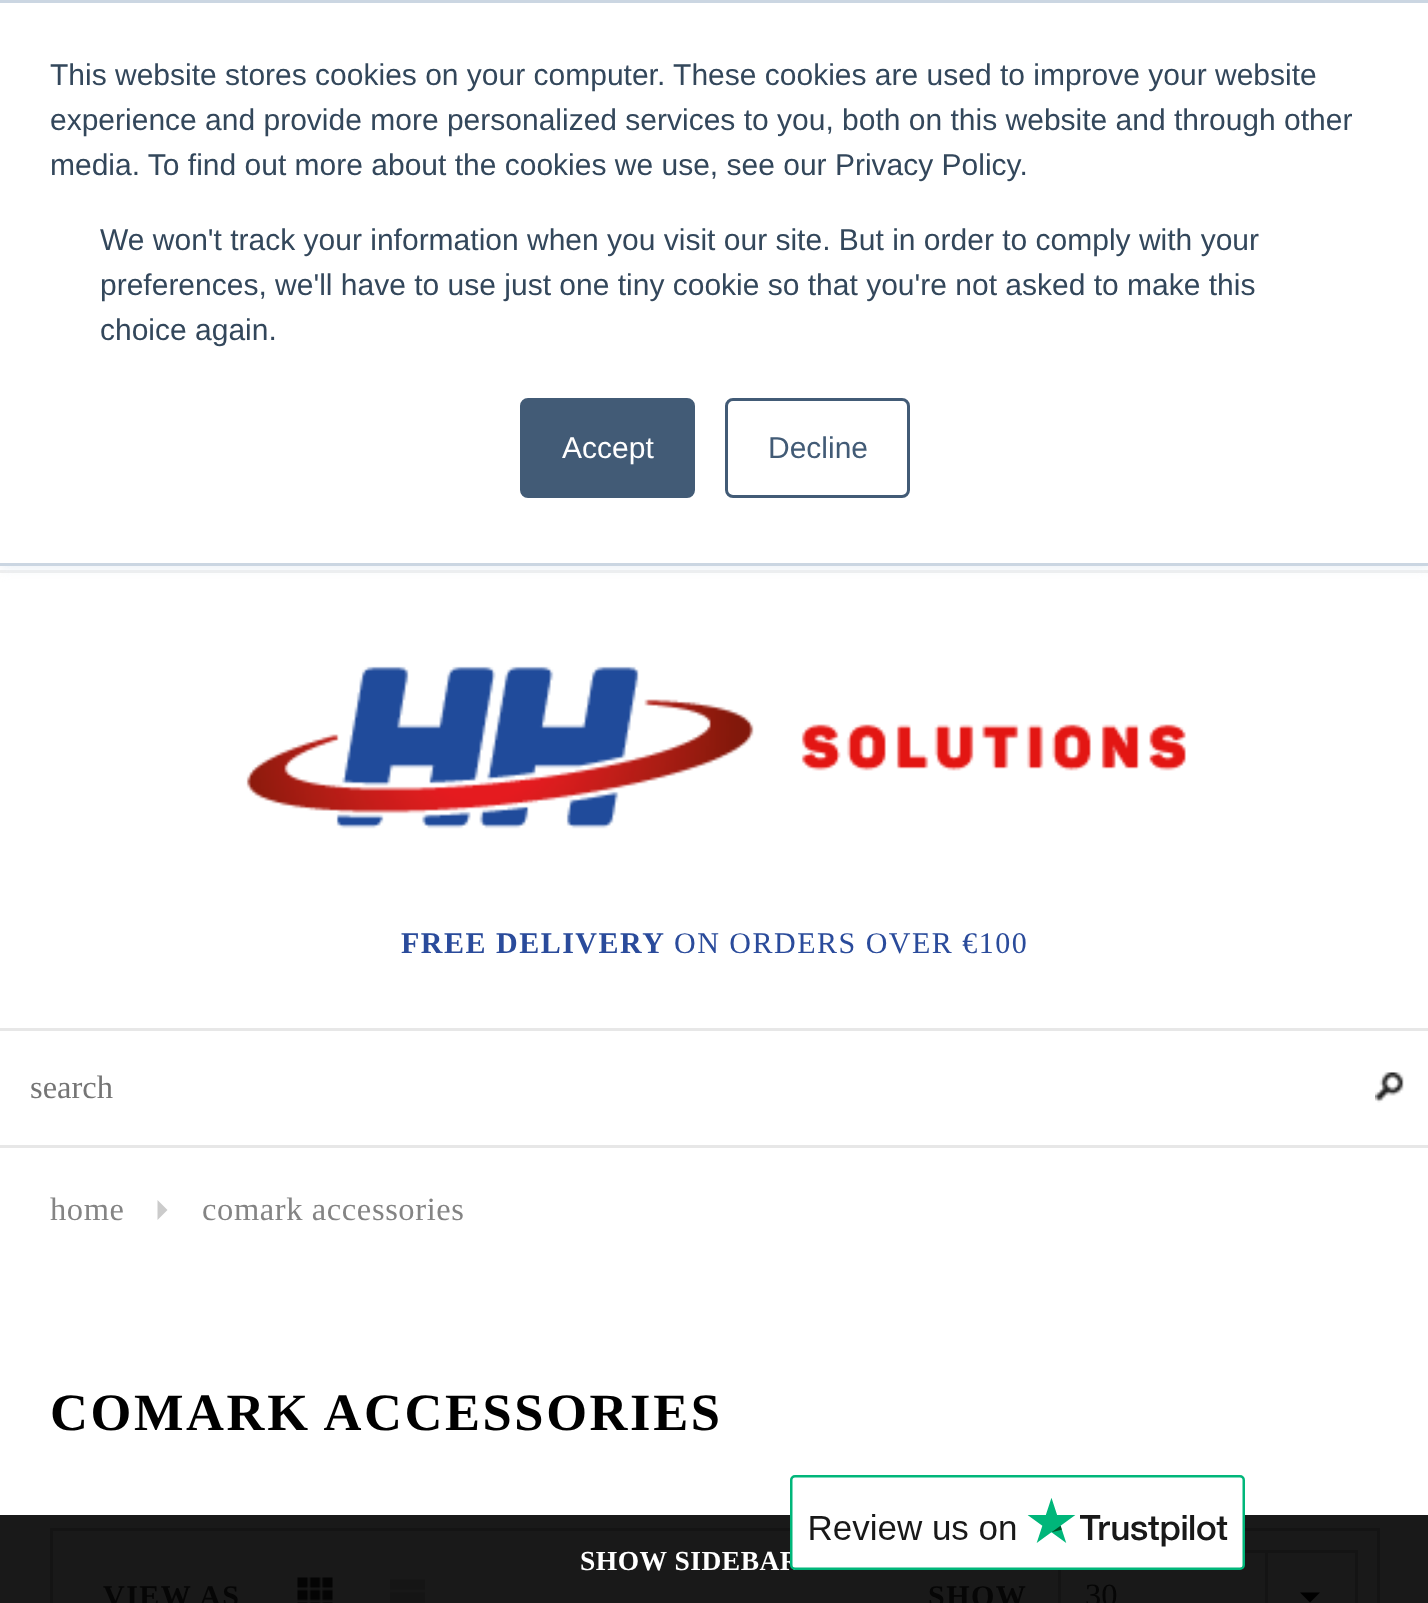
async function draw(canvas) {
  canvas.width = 1428;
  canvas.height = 1603;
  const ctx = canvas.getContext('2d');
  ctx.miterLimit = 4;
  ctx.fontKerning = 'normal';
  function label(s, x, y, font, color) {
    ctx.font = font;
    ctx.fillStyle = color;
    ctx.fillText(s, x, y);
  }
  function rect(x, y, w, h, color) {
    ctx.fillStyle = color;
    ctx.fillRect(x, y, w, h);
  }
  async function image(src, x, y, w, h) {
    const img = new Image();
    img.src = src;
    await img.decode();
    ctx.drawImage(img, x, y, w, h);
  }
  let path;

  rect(0, 0, 1428, 1603, '#fff');
  rect(0, 1515, 1428, 88, '#191919');
  rect(0, 570, 1428, 3, '#eee');
  ctx.fillStyle = '#eaf0f6';
  ctx.filter = 'blur(6px)';
  ctx.beginPath();
  ctx.rect(0, 3, 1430, 565);
  ctx.fill();
  ctx.filter = 'none';
  rect(0, 3, 1428, 560, '#fff');
  rect(0, 0, 1428, 3, '#cbd6e2');
  rect(0, 563, 1428, 3, '#cbd6e2');
  label('This website stores cookies on your computer. These cookies are used to improve your website', 50, 85, '30px Liberation Sans', '#33475b');
  label('experience and provide more personalized services to you, both on this website and through other', 50, 130, '30px Liberation Sans', '#33475b');
  label('media. To find out more about the cookies we use, see our Privacy Policy.', 50, 175, '30px Liberation Sans', '#33475b');
  label('We won\'t track your information when you visit our site. But in order to comply with your', 100, 250, '30px Liberation Sans', '#33475b');
  label('preferences, we\'ll have to use just one tiny cookie so that you\'re not asked to make this', 100, 295, '30px Liberation Sans', '#33475b');
  label('choice again.', 100, 340, '30px Liberation Sans', '#33475b');
  ctx.fillStyle = '#425b76';
  ctx.beginPath();
  ctx.roundRect(521.5, 399.5, 172, 97, 6.5);
  ctx.fill();
  ctx.strokeStyle = '#425b76';
  ctx.lineWidth = 3;
  ctx.stroke();
  label('Accept', 562, 458, '30px Liberation Sans', '#fff');
  ctx.beginPath();
  ctx.roundRect(726.5, 399.5, 182, 97, 6.5);
  ctx.stroke();
  label('Decline', 768, 458, '30px Liberation Sans', '#425b76');
  await image('assets/img1.png', 246, 666, 940, 163);
  ctx.letterSpacing = '1.5px';
  label('FREE DELIVERY', 401, 953, 'bold 30px Liberation Serif', '#2a4b9b');
  label('ON ORDERS OVER €100', 674, 953, '30px Liberation Serif', '#2a4b9b');
  rect(0, 1028, 1428, 3, '#e7e7e7');
  rect(0, 1145, 1428, 3, '#e7e7e7');
  ctx.letterSpacing = '0px';
  label('search', 30, 1098, '32.5px Liberation Serif', '#757575');
  await image('assets/img2.png', 1375, 1072, 29, 31);
  ctx.letterSpacing = '0.6px';
  label('home', 50, 1220, '32.5px Liberation Serif', '#848484');
  ctx.fillStyle = '#cbcbcb';
  path = new Path2D('M157.5 1220V1200L167.5 1210Z');
  ctx.fill(path);
  label('comark accessories', 202, 1220, '32.5px Liberation Serif', '#848484');
  ctx.letterSpacing = '2.6px';
  label('COMARK ACCESSORIES', 50, 1430, 'bold 52.5px Liberation Serif', '#000');
  ctx.strokeStyle = '#141414';
  ctx.strokeRect(51.5, 1529.5, 1327, 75);
  ctx.letterSpacing = '1.5px';
  label('VIEW AS', 103, 1606, 'bold 30px Liberation Serif', '#060606');
  await image('assets/img3.png', 297, 1577, 36, 26);
  await image('assets/img4.png', 390, 1579, 35, 24);
  label('SHOW', 928, 1606, 'bold 30px Liberation Serif', '#060606');
  ctx.strokeRect(1059.5, 1551.5, 297, 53);
  ctx.letterSpacing = '0px';
  label('30', 1085, 1606, '32.5px Liberation Serif', '#060606');
  rect(1265, 1553, 3, 50, '#141414');
  ctx.fillStyle = '#000';
  path = new Path2D('M1300 1592.5H1320L1310 1602.5Z');
  ctx.fill(path);
  ctx.letterSpacing = '0.5px';
  label('SHOW SIDEBAR', 580, 1570, 'bold 27.5px Liberation Serif', '#fff');
  await image('assets/img5.png', 790, 1475, 455, 95);
}

draw(document.querySelector('canvas'));
